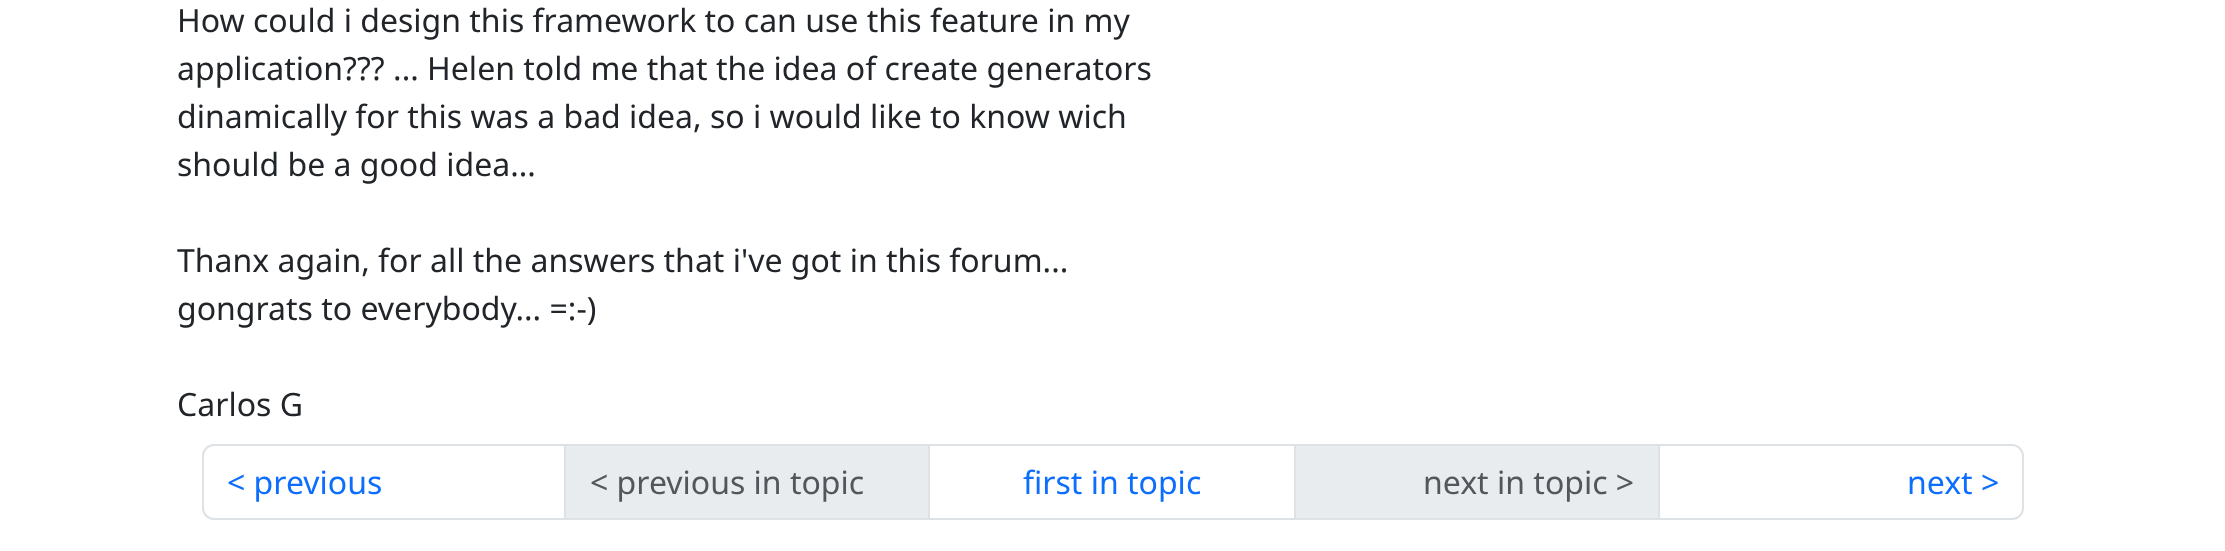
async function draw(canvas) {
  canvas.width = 2225;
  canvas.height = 551;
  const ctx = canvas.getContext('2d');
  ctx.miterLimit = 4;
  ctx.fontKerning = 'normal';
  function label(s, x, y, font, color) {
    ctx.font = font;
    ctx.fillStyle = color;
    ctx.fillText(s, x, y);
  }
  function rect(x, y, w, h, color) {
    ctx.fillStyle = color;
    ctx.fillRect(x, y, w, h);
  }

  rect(0, 0, 2225, 551, '#fff');
  label('How could i design this framework to can use this feature in my', 177, 32, '32px Noto Sans', '#212529');
  label('application??? ... Helen told me that the idea of create generators', 177, 80, '32px Noto Sans', '#212529');
  label('dinamically for this was a bad idea, so i would like to know wich', 177, 128, '32px Noto Sans', '#212529');
  label('should be a good idea...', 177, 176, '32px Noto Sans', '#212529');
  label('Thanx again, for all the answers that i\'ve got in this forum...', 177, 272, '32px Noto Sans', '#212529');
  label('gongrats to everybody... =:-)', 177, 320, '32px Noto Sans', '#212529');
  label('Carlos G', 177, 416, '32px Noto Sans', '#212529');
  ctx.beginPath();
  ctx.roundRect(203, 445, 362, 74, [11, 0, 0, 11]);
  ctx.strokeStyle = '#dee2e6';
  ctx.lineWidth = 2;
  ctx.stroke();
  label('< previous', 227, 494, '32px Noto Sans', '#0d6efd');
  ctx.fillStyle = '#e9ecef';
  ctx.beginPath();
  ctx.rect(565, 445, 364, 74);
  ctx.fill();
  ctx.stroke();
  label('< previous in topic', 590, 494, '32px Noto Sans', '#53575b');
  ctx.strokeRect(929, 445, 366, 74);
  label('first in topic', 1023, 494, '32px Noto Sans', '#0d6efd');
  ctx.fillStyle = '#e9ecef';
  ctx.beginPath();
  ctx.rect(1295, 445, 364, 74);
  ctx.fill();
  ctx.stroke();
  label('next in topic >', 1423, 494, '32px Noto Sans', '#53575b');
  ctx.fillStyle = '#fff';
  ctx.beginPath();
  ctx.roundRect(1659, 445, 364, 74, [0, 11, 11, 0]);
  ctx.fill();
  ctx.stroke();
  label('next >', 1907, 494, '32px Noto Sans', '#0d6efd');
}

draw(document.querySelector('canvas'));
